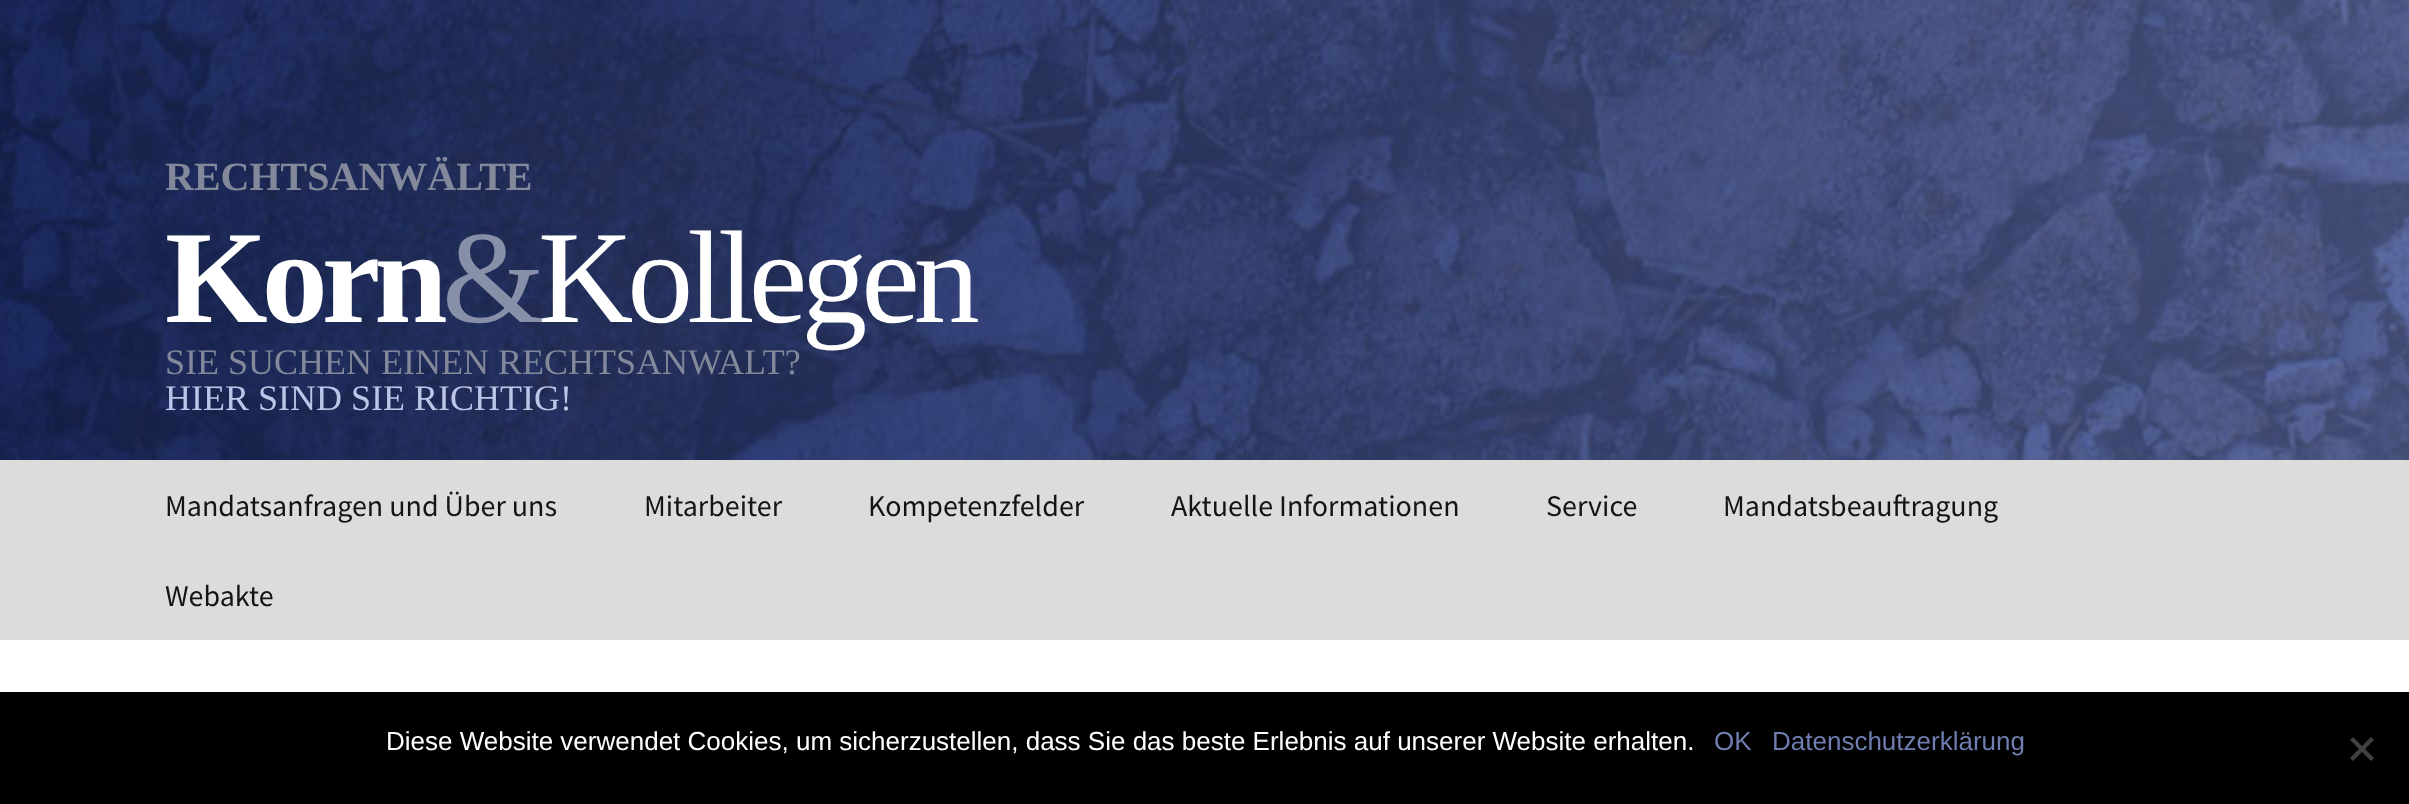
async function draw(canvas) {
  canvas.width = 2409;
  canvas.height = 804;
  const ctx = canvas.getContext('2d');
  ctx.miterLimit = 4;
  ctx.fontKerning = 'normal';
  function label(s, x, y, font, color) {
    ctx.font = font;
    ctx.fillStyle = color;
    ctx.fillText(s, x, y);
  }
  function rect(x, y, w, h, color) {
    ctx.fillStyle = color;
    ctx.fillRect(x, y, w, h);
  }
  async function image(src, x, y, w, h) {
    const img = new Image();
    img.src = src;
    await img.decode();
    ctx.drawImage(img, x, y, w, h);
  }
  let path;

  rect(0, 0, 2409, 804, '#fff');
  await image('assets/img1.png', 0, 0, 2409, 460);
  label('RECHTSANWÄLTE', 165, 190, 'bold 40px Liberation Serif', '#83889b');
  ctx.letterSpacing = '-6px';
  label('Korn', 165, 322, 'bold 132px Liberation Serif', '#fff');
  label('&', 442, 322, '132px Liberation Serif', '#888fa8');
  label('Kollegen', 538, 322, '132px Liberation Serif', '#fff');
  ctx.letterSpacing = '0px';
  label('SIE SUCHEN EINEN RECHTSANWALT?', 165, 374, '36px Liberation Serif', '#83889b');
  label('HIER SIND SIE RICHTIG!', 165, 410, '36px Liberation Serif', '#bcc6e9');
  rect(0, 460, 2409, 180, '#dcdcdc');
  label('Mandatsanfragen und Über uns', 165, 516, '30px Source Sans Pro', '#141412');
  label('Mitarbeiter', 644, 516, '30px Source Sans Pro', '#141412');
  label('Kompetenzfelder', 868, 516, '30px Source Sans Pro', '#141412');
  label('Aktuelle Informationen', 1171, 516, '30px Source Sans Pro', '#141412');
  label('Service', 1546, 516, '30px Source Sans Pro', '#141412');
  label('Mandatsbeauftragung', 1723, 516, '30px Source Sans Pro', '#141412');
  label('Webakte', 165, 606, '30px Source Sans Pro', '#141412');
  rect(0, 692, 2409, 112, '#000');
  label('Diese Website verwendet Cookies, um sicherzustellen, dass Sie das beste Erlebnis auf unserer Website erhalten.', 386, 750, '26px Liberation Sans', '#fff');
  label('OK', 1714, 750, '26px Liberation Sans', '#707db0');
  label('Datenschutzerklärung', 1772, 750, '26px Liberation Sans', '#707db0');
  ctx.fillStyle = '#404040';
  path = new Path2D('M2371 737L2374 740L2353 761L2350 758Z');
  ctx.fill(path);
  path = new Path2D('M2350 740L2353 737L2374 758L2371 761Z');
  ctx.fill(path);
}

draw(document.querySelector('canvas'));
